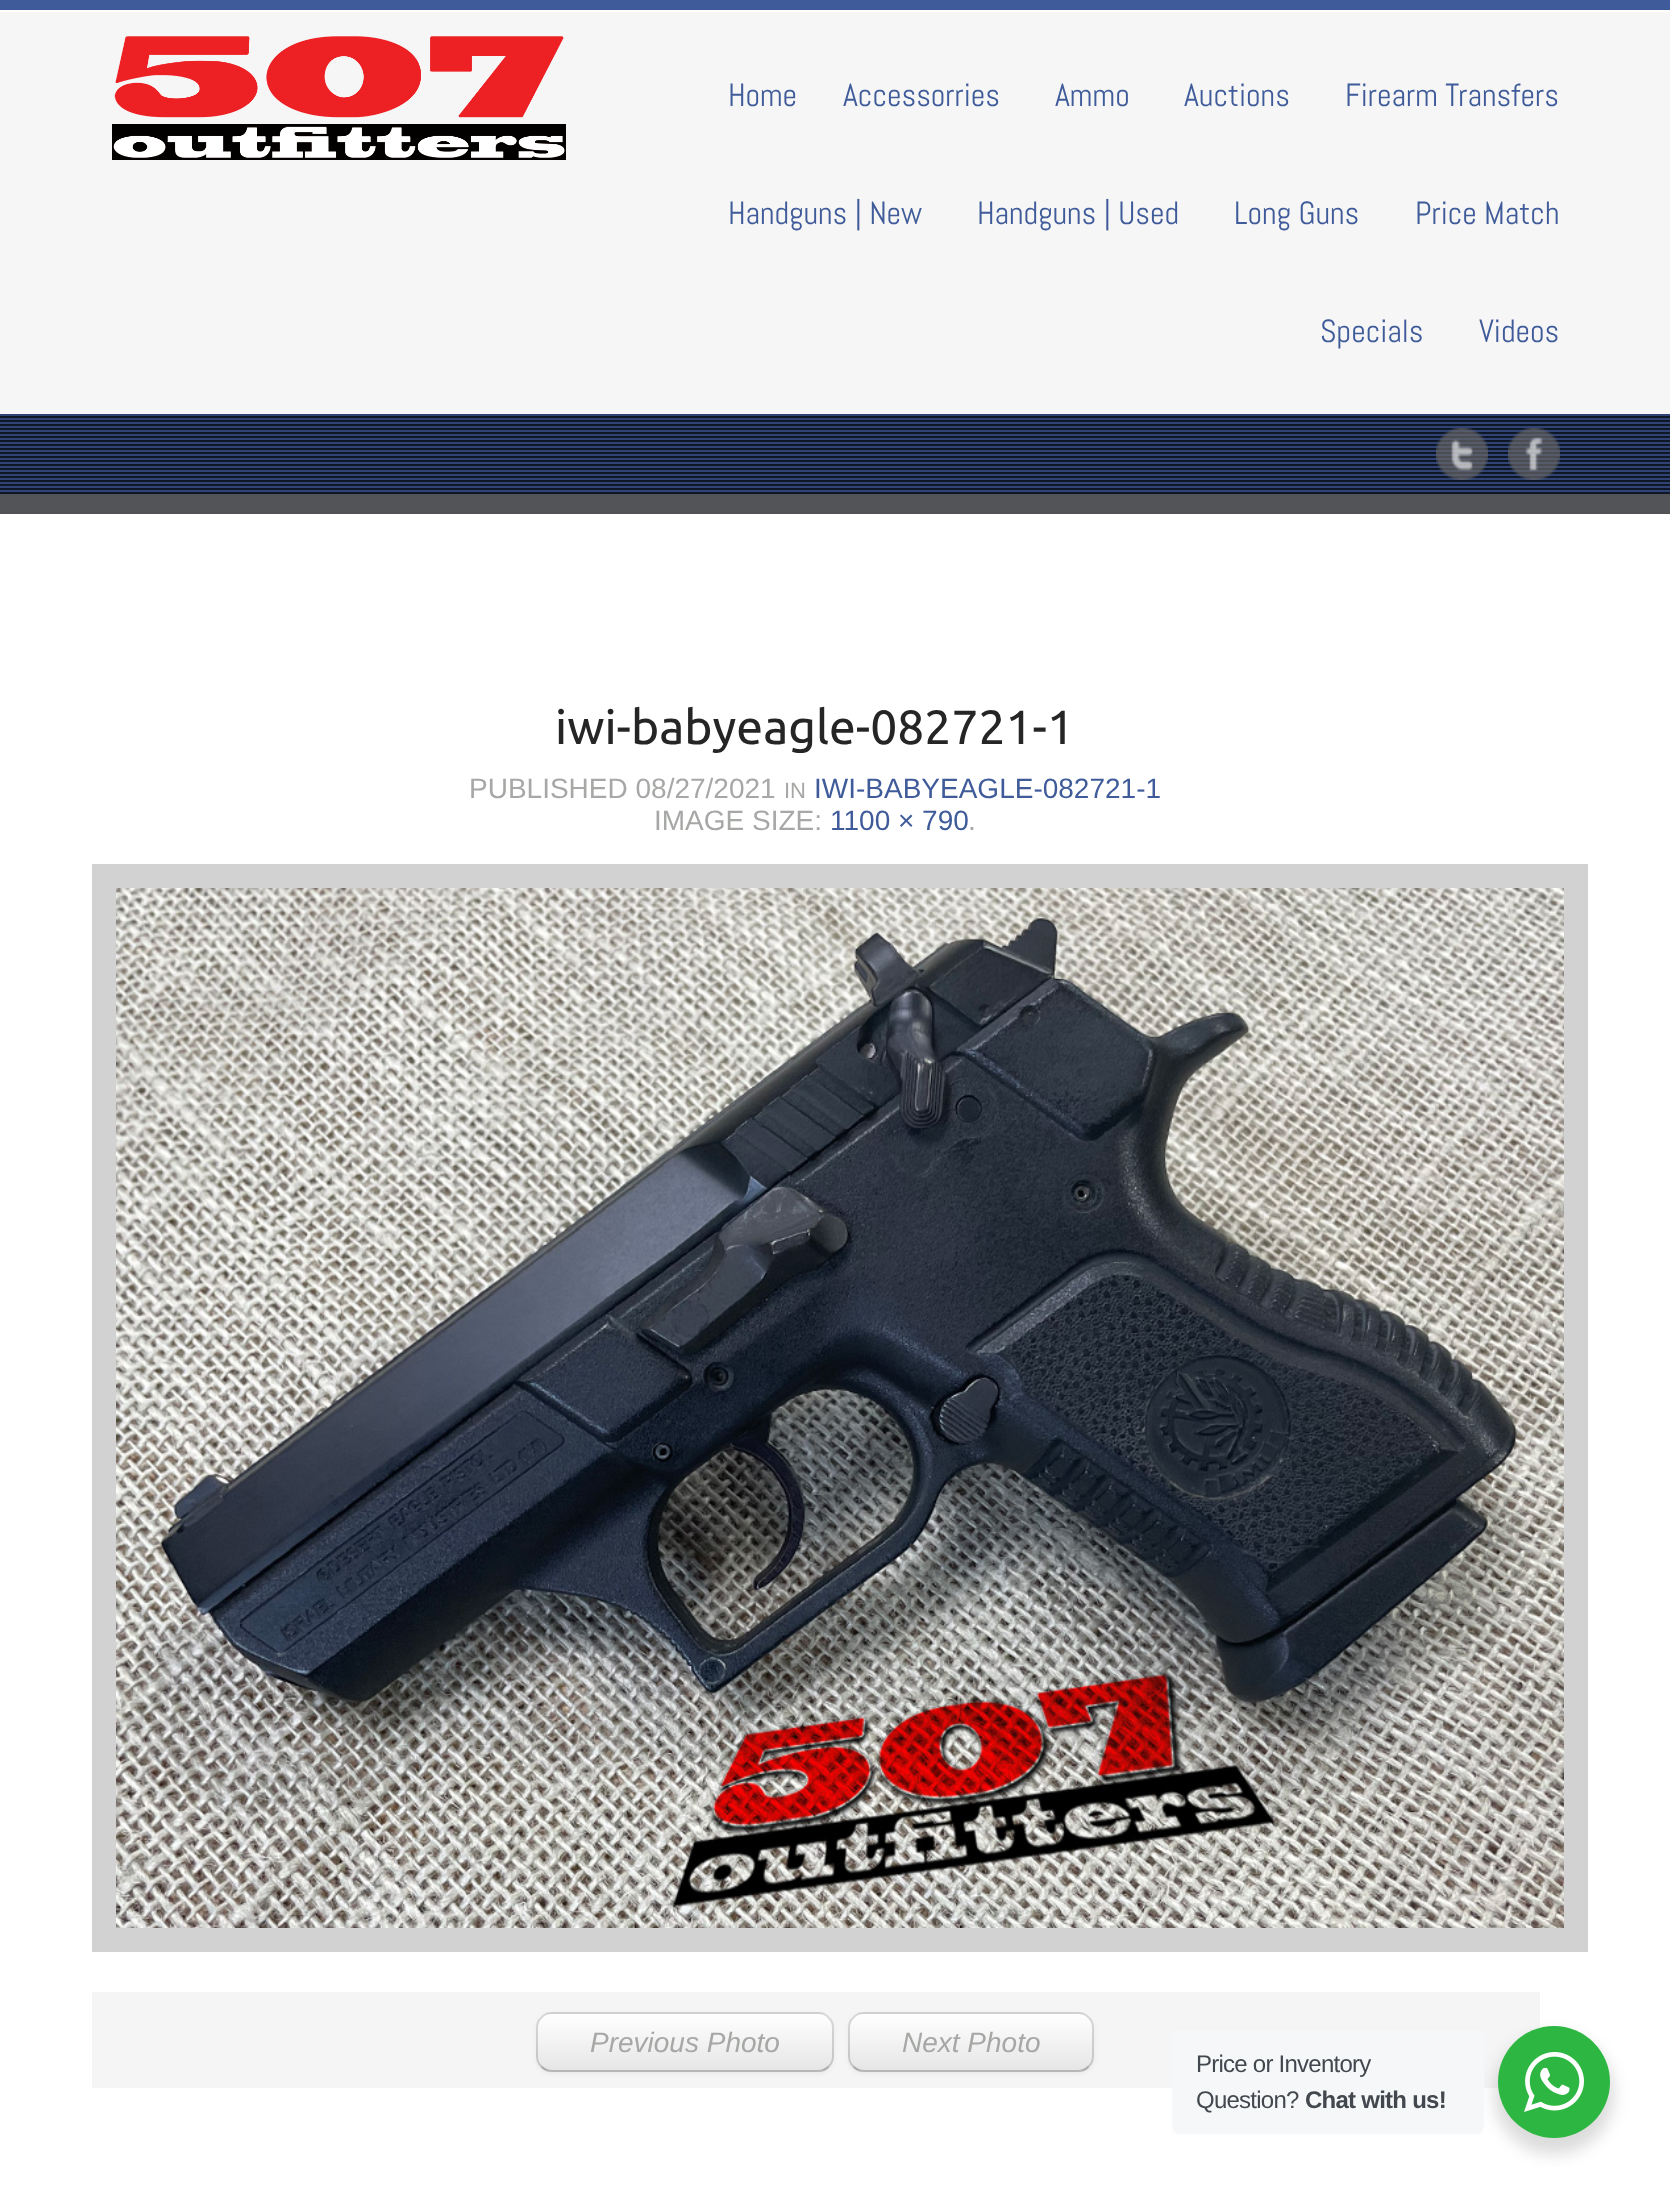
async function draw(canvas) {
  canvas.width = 1670;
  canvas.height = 2198;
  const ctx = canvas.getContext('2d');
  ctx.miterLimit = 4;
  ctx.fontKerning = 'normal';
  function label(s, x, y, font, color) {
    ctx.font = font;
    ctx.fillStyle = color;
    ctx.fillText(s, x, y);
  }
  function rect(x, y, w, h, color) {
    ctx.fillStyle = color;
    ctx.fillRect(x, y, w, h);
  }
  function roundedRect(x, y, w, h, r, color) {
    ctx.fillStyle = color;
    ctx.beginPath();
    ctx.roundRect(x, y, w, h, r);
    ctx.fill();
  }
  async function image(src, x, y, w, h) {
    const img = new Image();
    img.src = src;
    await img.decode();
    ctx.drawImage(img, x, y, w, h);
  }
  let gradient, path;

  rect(0, 0, 1670, 2198, '#fff');
  rect(0, 0, 1670, 10, '#3f5b9a');
  rect(0, 12, 1670, 402, '#f6f6f6');
  await image('assets/img1.png', 112, 36, 454, 124);
  label('Home', 728, 106, '32px Abel', '#3f5b9a');
  label('Accessorries', 843, 106, '32px Abel', '#3f5b9a');
  label('Ammo', 1055, 106, '32px Abel', '#3f5b9a');
  label('Auctions', 1184, 106, '32px Abel', '#3f5b9a');
  label('Firearm Transfers', 1345, 106, '32px Abel', '#3f5b9a');
  label('Handguns | New', 728, 224, '32px Abel', '#3f5b9a');
  label('Handguns | Used', 977, 224, '32px Abel', '#3f5b9a');
  label('Long Guns', 1234, 224, '32px Abel', '#3f5b9a');
  label('Price Match', 1415, 224, '32px Abel', '#3f5b9a');
  label('Specials', 1320, 342, '32px Abel', '#3f5b9a');
  label('Videos', 1479, 342, '32px Abel', '#3f5b9a');
  rect(0, 414, 1670, 80, '#3f5b9a');
  await image('assets/img2.png', 0, 414, 1670, 80);
  await image('assets/img3.png', 1436, 428, 52, 52);
  await image('assets/img4.png', 1508, 428, 52, 52);
  rect(0, 494, 1670, 20, '#525458');
  label('iwi-babyeagle-082721-1', 555, 744, '48px Ubuntu', '#252525');
  label('PUBLISHED 08/27/2021', 469, 798, '28px Liberation Sans', '#a6a8a5');
  label('IN', 784, 798, '22px Liberation Sans', '#a6a8a5');
  label('IWI-BABYEAGLE-082721-1', 814, 798, '28px Liberation Sans', '#3f5b9a');
  label('IMAGE SIZE:', 654, 830, '28px Liberation Sans', '#a6a8a5');
  label('1100 × 790', 830, 830, '28px Liberation Sans', '#3f5b9a');
  label('.', 968, 830, '28px Liberation Sans', '#a6a8a5');
  ctx.strokeStyle = '#d2d2d2';
  ctx.lineWidth = 24;
  ctx.strokeRect(104, 876, 1472, 1064);
  await image('assets/img5.png', 116, 888, 1448, 1040);
  rect(92, 1992, 1448, 96, '#f5f5f5');
  ctx.fillStyle = '#0000000d';
  ctx.filter = 'blur(2px)';
  ctx.beginPath();
  ctx.roundRect(536, 2014, 298, 60, 16);
  ctx.fill();
  ctx.filter = 'none';
  roundedRect(536, 2012, 298, 60, 16, '#f5f5f5');
  ctx.save();
  ctx.beginPath();
  ctx.roundRect(536, 2012, 298, 60, 16);
  ctx.clip();
  gradient = ctx.createLinearGradient(685, 2014, 685, 2070);
  gradient.addColorStop(0, '#fff');
  gradient.addColorStop(1, '#e6e6e6');
  ctx.fillStyle = gradient;
  ctx.fillRect(536, 2014, 298, 56);
  ctx.restore();
  path = new Path2D('M828.5 2066.5C826 2069.5 822 2071 818 2071H552C548 2071 544 2069.5 541.5 2066.5');
  ctx.strokeStyle = '#00000040';
  ctx.lineWidth = 2;
  ctx.stroke(path);
  path = new Path2D('M541.5 2066.5C538.5 2064 537 2060 537 2056V2028C537 2024 538.5 2020 541.5 2017.5C544 2014.5 548 2013 552 2013H818C822 2013 826 2014.5 828.5 2017.5C831.5 2020 833 2024 833 2028V2056C833 2060 831.5 2064 828.5 2066.5');
  ctx.strokeStyle = '#00000026';
  ctx.stroke(path);
  label('Previous Photo', 590, 2052, 'italic 28px Liberation Sans', '#a6a8a5');
  ctx.fillStyle = '#0000000d';
  ctx.filter = 'blur(2px)';
  ctx.beginPath();
  ctx.roundRect(848, 2014, 246, 60, 16);
  ctx.fill();
  ctx.filter = 'none';
  roundedRect(848, 2012, 246, 60, 16, '#f5f5f5');
  ctx.save();
  ctx.beginPath();
  ctx.roundRect(848, 2012, 246, 60, 16);
  ctx.clip();
  gradient = ctx.createLinearGradient(971, 2014, 971, 2070);
  gradient.addColorStop(0, '#fff');
  gradient.addColorStop(1, '#e6e6e6');
  ctx.fillStyle = gradient;
  ctx.fillRect(848, 2014, 246, 56);
  ctx.restore();
  path = new Path2D('M1088.5 2066.5C1086 2069.5 1082 2071 1078 2071H864C860 2071 856 2069.5 853.5 2066.5');
  ctx.strokeStyle = '#00000040';
  ctx.stroke(path);
  path = new Path2D('M853.5 2066.5C850.5 2064 849 2060 849 2056V2028C849 2024 850.5 2020 853.5 2017.5C856 2014.5 860 2013 864 2013H1078C1082 2013 1086 2014.5 1088.5 2017.5C1091.5 2020 1093 2024 1093 2028V2056C1093 2060 1091.5 2064 1088.5 2066.5');
  ctx.strokeStyle = '#00000026';
  ctx.stroke(path);
  label('Next Photo', 902, 2052, 'italic 28px Liberation Sans', '#a6a8a5');
  ctx.fillStyle = '#00000024';
  ctx.filter = 'blur(8px)';
  ctx.beginPath();
  ctx.roundRect(1494, 2034, 120, 120, 60);
  ctx.fill();
  ctx.filter = 'none';
  roundedRect(1172, 2030, 312, 104, 8, '#f5f7f9');
  ctx.letterSpacing = '-0.75px';
  label('Price or Inventory', 1196, 2072, '24px Liberation Sans', '#43474e');
  label('Question?', 1196, 2108, '24px Liberation Sans', '#43474e');
  label('Chat with us!', 1305, 2108, 'bold 24px Liberation Sans', '#43474e');
  ctx.fillStyle = '#2db742';
  ctx.beginPath();
  ctx.arc(1554, 2082, 56, 0, 2 * Math.PI);
  ctx.fill();
  await image('assets/img6.png', 1524, 2052, 60, 60);
}

draw(document.querySelector('canvas'));
